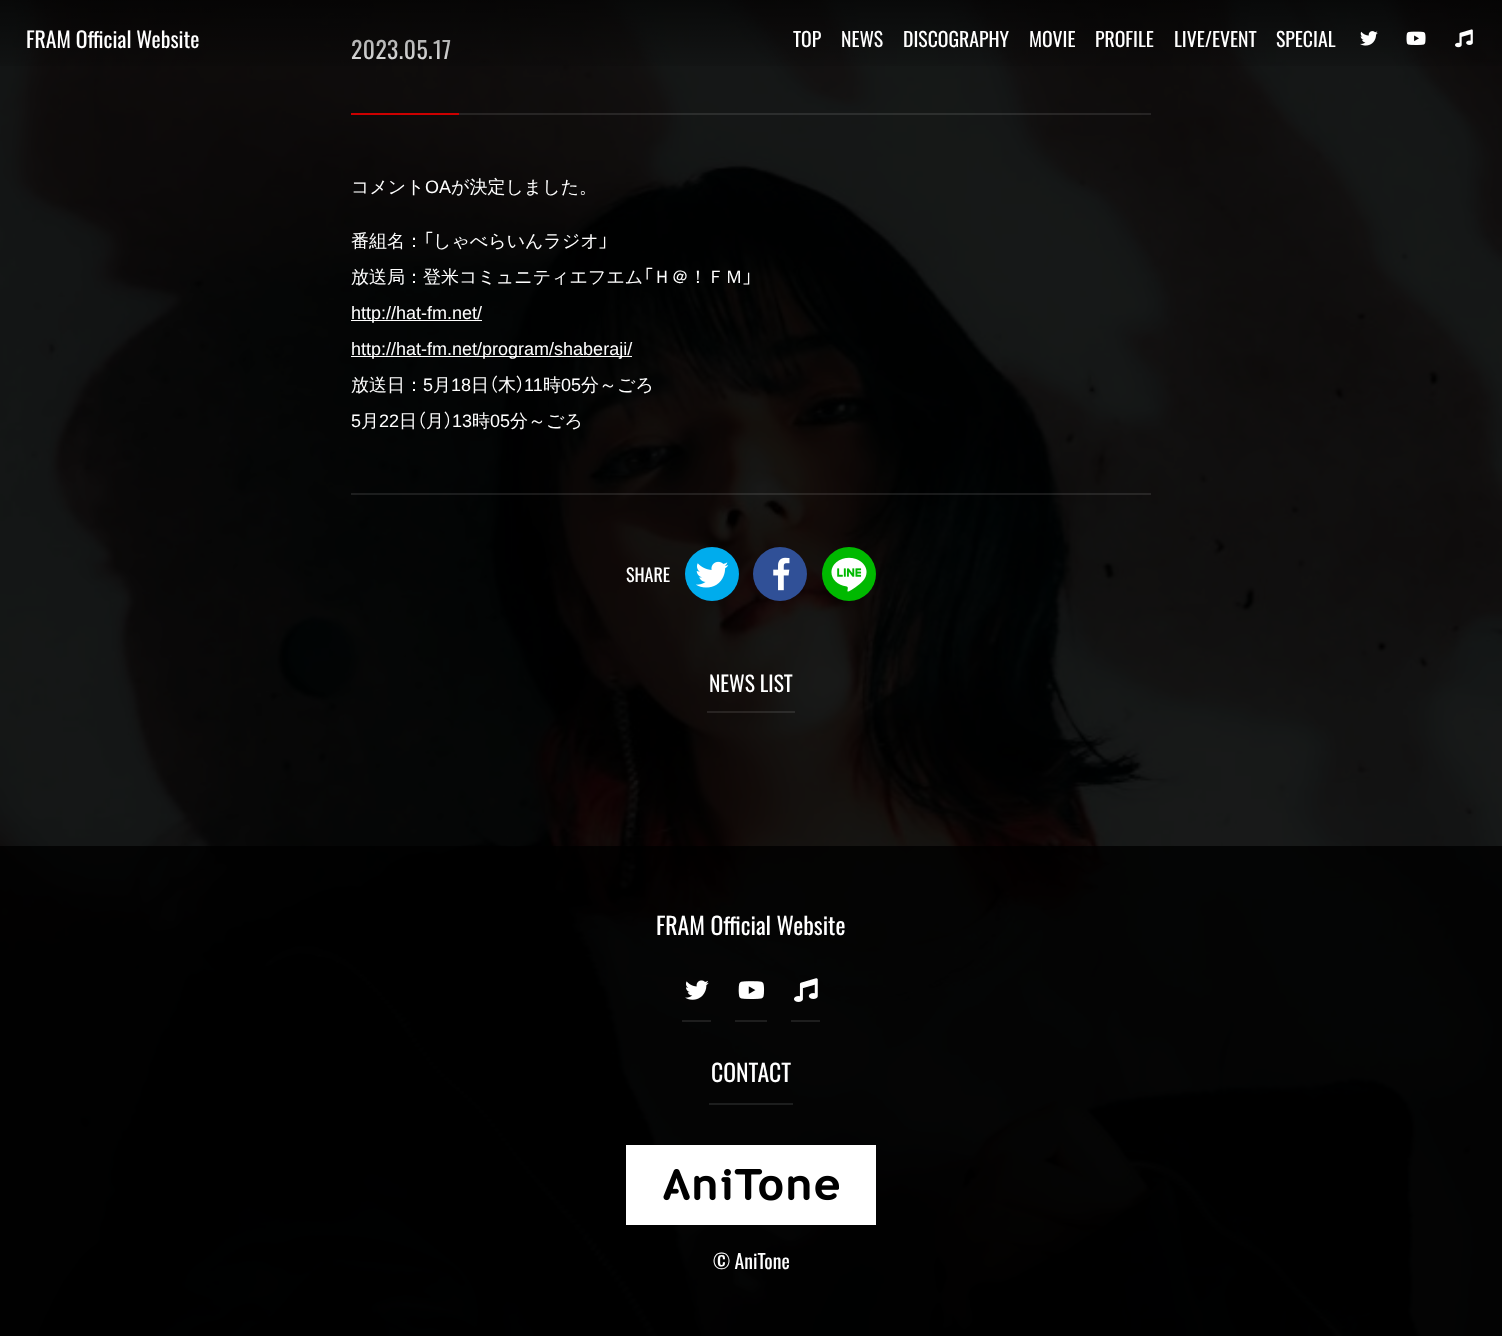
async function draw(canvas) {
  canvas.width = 1502;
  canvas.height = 1336;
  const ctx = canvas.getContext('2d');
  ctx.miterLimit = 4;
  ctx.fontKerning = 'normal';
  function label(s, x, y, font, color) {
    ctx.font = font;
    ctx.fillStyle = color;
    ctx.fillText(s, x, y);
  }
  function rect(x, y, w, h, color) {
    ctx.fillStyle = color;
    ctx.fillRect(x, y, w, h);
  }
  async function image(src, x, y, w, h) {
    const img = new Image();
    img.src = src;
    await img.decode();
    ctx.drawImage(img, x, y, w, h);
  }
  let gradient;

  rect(0, 0, 1502, 1336, '#000');
  await image('assets/img1.png', 0, 0, 1502, 1336);
  ctx.letterSpacing = '0.5px';
  label('2023.05.17', 351, 59, '23.5px Oswald', '#fff');
  gradient = ctx.createLinearGradient(751, 80, 751, 0);
  gradient.addColorStop(0, '#00000000');
  gradient.addColorStop(1, '#00000099');
  ctx.fillStyle = gradient;
  ctx.fillRect(0, 0, 1502, 66);
  ctx.letterSpacing = '0px';
  label('FRAM Official Website', 26, 48, '21.75px Oswald', '#fff');
  label('TOP', 793, 47, '19.75px Oswald', '#fff');
  label('NEWS', 841, 47, '19.75px Oswald', '#fff');
  label('DISCOGRAPHY', 903, 47, '19.75px Oswald', '#fff');
  label('MOVIE', 1029, 47, '19.75px Oswald', '#fff');
  label('PROFILE', 1095, 47, '19.75px Oswald', '#fff');
  label('LIVE/EVENT', 1174, 47, '19.75px Oswald', '#fff');
  label('SPECIAL', 1276, 47, '19.75px Oswald', '#fff');
  await image('assets/img2.png', 1360, 31, 18, 15);
  await image('assets/img3.png', 1406, 31, 20, 14);
  await image('assets/img4.png', 1455, 29, 18, 19);
  rect(351, 113, 108, 2, '#c00');
  rect(459, 113, 692, 2, '#ffffff1a');
  label('コメント', 351, 193, '500 18px WenQuanYi Zen Hei', '#fff');
  label('OA', 425, 193, '18px Liberation Sans', '#fff');
  label('が決定しました。', 451, 193, '500 18px WenQuanYi Zen Hei', '#fff');
  label('番組名：', 351, 247, '500 18px WenQuanYi Zen Hei', '#fff');
  label('「', 423, 247, '300 18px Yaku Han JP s', '#fff');
  label('しゃべらいんラジオ', 433, 247, '500 18px WenQuanYi Zen Hei', '#fff');
  label('」', 599, 247, '300 18px Yaku Han JP s', '#fff');
  label('放送局：登米コミュニティエフエム', 351, 283, '500 18px WenQuanYi Zen Hei', '#fff');
  label('「', 643, 283, '300 18px Yaku Han JP s', '#fff');
  label('Ｈ＠！ＦＭ', 653, 283, '500 18px WenQuanYi Zen Hei', '#fff');
  label('」', 743, 283, '300 18px Yaku Han JP s', '#fff');
  rect(351, 320, 131, 1, '#fff');
  label('http://hat-fm.net/', 351, 319, '18px Liberation Sans', '#fff');
  rect(351, 356, 281, 1, '#fff');
  label('http://hat-fm.net/program/shaberaji/', 351, 355, '18px Liberation Sans', '#fff');
  label('放送日：', 351, 391, '500 18px WenQuanYi Zen Hei', '#fff');
  label('5', 423, 391, '18px Liberation Sans', '#fff');
  label('月', 433, 391, '500 18px WenQuanYi Zen Hei', '#fff');
  label('18', 451, 391, '18px Liberation Sans', '#fff');
  label('日', 471, 391, '500 18px WenQuanYi Zen Hei', '#fff');
  label('（', 489, 391, '300 18px Yaku Han JP s', '#fff');
  label('木', 498, 391, '500 18px WenQuanYi Zen Hei', '#fff');
  label('）', 516, 391, '300 18px Yaku Han JP s', '#fff');
  label('11', 524, 391, '18px Liberation Sans', '#fff');
  label('時', 543, 391, '500 18px WenQuanYi Zen Hei', '#fff');
  label('05', 561, 391, '18px Liberation Sans', '#fff');
  label('分～ごろ', 581, 391, '500 18px WenQuanYi Zen Hei', '#fff');
  label('5', 351, 427, '18px Liberation Sans', '#fff');
  label('月', 361, 427, '500 18px WenQuanYi Zen Hei', '#fff');
  label('22', 379, 427, '18px Liberation Sans', '#fff');
  label('日', 399, 427, '500 18px WenQuanYi Zen Hei', '#fff');
  label('（', 417, 427, '300 18px Yaku Han JP s', '#fff');
  label('月', 426, 427, '500 18px WenQuanYi Zen Hei', '#fff');
  label('）', 444, 427, '300 18px Yaku Han JP s', '#fff');
  label('13', 452, 427, '18px Liberation Sans', '#fff');
  label('時', 472, 427, '500 18px WenQuanYi Zen Hei', '#fff');
  label('05', 490, 427, '18px Liberation Sans', '#fff');
  label('分～ごろ', 510, 427, '500 18px WenQuanYi Zen Hei', '#fff');
  rect(351, 493, 800, 2, '#ffffff1a');
  label('SHARE', 626, 582, '18px Oswald', '#fff');
  ctx.fillStyle = '#00aced';
  ctx.beginPath();
  ctx.arc(712, 574, 27, 0, 2 * Math.PI);
  ctx.fill();
  await image('assets/img5.png', 696, 561, 33, 27);
  ctx.fillStyle = '#305097';
  ctx.beginPath();
  ctx.arc(780, 574, 27, 0, 2 * Math.PI);
  ctx.fill();
  await image('assets/img6.png', 773, 557, 17, 34);
  ctx.fillStyle = '#00b900';
  ctx.beginPath();
  ctx.arc(849, 574, 27, 0, 2 * Math.PI);
  ctx.fill();
  await image('assets/img7.png', 831, 557, 36, 35);
  label('NEWS LIST', 709, 692, '21.5px Oswald', '#fff');
  rect(707, 711, 88, 2, '#ffffff1a');
  rect(0, 846, 1502, 490, '#000000cc');
  label('FRAM Official Website', 656, 935, '23.75px Oswald', '#fff');
  await image('assets/img8.png', 685, 980, 24, 20);
  rect(682, 1020, 29, 2, '#1e1e1e');
  await image('assets/img9.png', 738, 981, 27, 18);
  rect(735, 1020, 32, 2, '#1e1e1e');
  await image('assets/img10.png', 794, 978, 24, 24);
  rect(791, 1020, 29, 2, '#1e1e1e');
  label('CONTACT', 711, 1082, '23.75px Oswald', '#fff');
  rect(709, 1103, 84, 2, '#1d1e1e');
  await image('assets/img11.png', 626, 1145, 250, 80);
  label('© AniTone', 713, 1269, '19.75px Oswald', '#fff');
}

draw(document.querySelector('canvas'));
